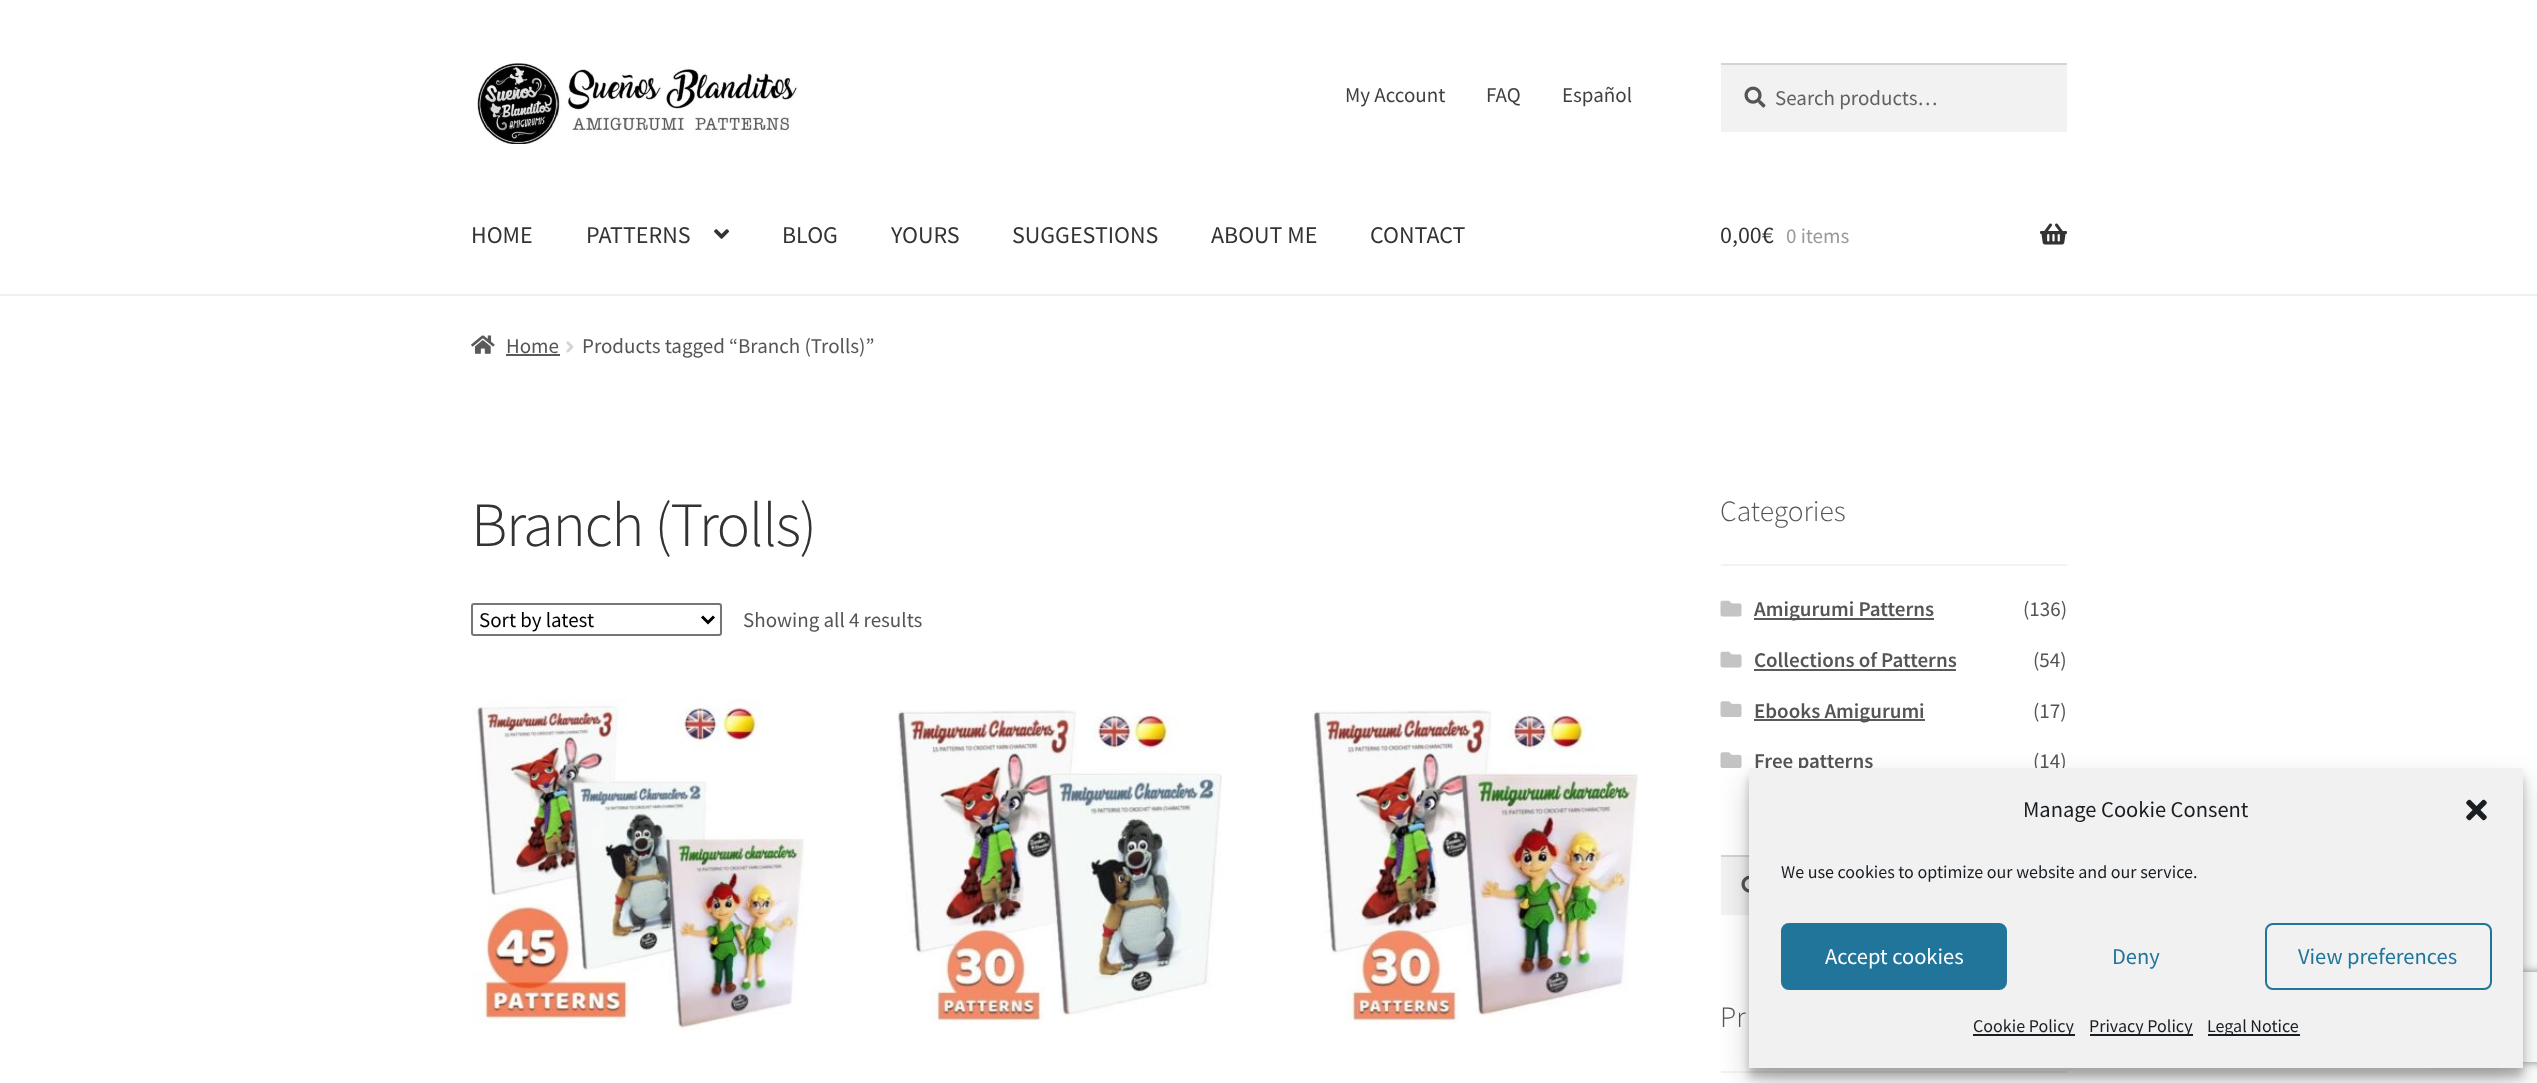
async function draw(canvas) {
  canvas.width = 2537;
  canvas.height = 1083;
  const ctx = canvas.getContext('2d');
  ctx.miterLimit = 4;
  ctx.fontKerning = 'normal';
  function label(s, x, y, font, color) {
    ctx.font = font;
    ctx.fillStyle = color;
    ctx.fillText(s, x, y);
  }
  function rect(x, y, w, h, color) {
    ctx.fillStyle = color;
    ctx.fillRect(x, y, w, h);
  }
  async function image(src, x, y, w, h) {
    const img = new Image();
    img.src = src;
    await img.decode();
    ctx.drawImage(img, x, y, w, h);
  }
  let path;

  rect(0, 0, 2537, 1083, '#fff');
  rect(0, 294, 2537, 2, '#f0f0f0');
  await image('assets/img1.png', 476, 63, 323, 81);
  label('My Account', 1345, 102, '21px Source Sans Pro', '#404040');
  label('FAQ', 1486, 102, '21px Source Sans Pro', '#404040');
  label('Español', 1562, 102, '21px Source Sans Pro', '#404040');
  rect(1721, 65, 346, 67, '#f2f2f2');
  await image('assets/img2.png', 1744, 86, 22, 22);
  rect(1721, 63, 346, 2, '#d4d4d4');
  label('Search products…', 1775, 105, '21px Source Sans Pro', '#616161');
  label('HOME', 471, 243, '24px Source Sans Pro', '#333');
  label('PATTERNS', 586, 243, '24px Source Sans Pro', '#333');
  await image('assets/img3.png', 714, 229, 15, 10);
  label('BLOG', 782, 243, '24px Source Sans Pro', '#333');
  label('YOURS', 891, 243, '24px Source Sans Pro', '#333');
  label('SUGGESTIONS', 1012, 243, '24px Source Sans Pro', '#333');
  label('ABOUT ME', 1211, 243, '24px Source Sans Pro', '#333');
  label('CONTACT', 1370, 243, '24px Source Sans Pro', '#333');
  label('0,00€', 1720, 243, '24px Source Sans Pro', '#333');
  label('0 items', 1786, 243, '21px Source Sans Pro', '#999');
  await image('assets/img4.png', 2040, 223, 27, 22);
  await image('assets/img5.png', 471, 335, 24, 19);
  label('Home', 506, 353, '21px Source Sans Pro', '#555');
  rect(506, 354, 54, 2, '#5a5a5a');
  await image('assets/img6.png', 566, 341, 8, 12);
  label('Products tagged “Branch (Trolls)”', 582, 353, '21px Source Sans Pro', '#555');
  ctx.letterSpacing = '-1.5px';
  label('Branch (Trolls)', 471, 546, '300 63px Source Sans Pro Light', '#333');
  ctx.beginPath();
  ctx.roundRect(472, 604, 249, 31, 2);
  ctx.strokeStyle = '#767676';
  ctx.lineWidth = 2;
  ctx.stroke();
  path = new Path2D('M702 616.5L708 622.5L714 616.5');
  ctx.strokeStyle = '#000';
  ctx.lineWidth = 3;
  ctx.stroke(path);
  ctx.letterSpacing = '0px';
  label('Sort by latest', 479, 627, '21px Source Sans Pro', '#000');
  label('Showing all 4 results', 743, 627, '21px Source Sans Pro', '#555');
  await image('assets/img7.png', 471, 699, 334, 332);
  await image('assets/img8.png', 897, 709, 325, 315);
  await image('assets/img9.png', 1312, 709, 326, 315);
  rect(1721, 564, 346, 2, '#f2f2f2');
  label('Categories', 1720, 521, '300 29.5px Source Sans Pro Light', '#555');
  await image('assets/img10.png', 1720, 600, 22, 17);
  rect(1754, 618, 180, 2, '#5a5a5a');
  label('Amigurumi Patterns', 1754, 616, '600 21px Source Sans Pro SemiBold', '#555');
  label('(136)', 2023, 616, '21px Source Sans Pro', '#555');
  await image('assets/img10.png', 1720, 651, 22, 17);
  label('Collections of Patterns', 1754, 667, '600 21px Source Sans Pro SemiBold', '#555');
  rect(1754, 669, 202, 2, '#5a5a5a');
  label('(54)', 2033, 667, '21px Source Sans Pro', '#555');
  await image('assets/img11.png', 1720, 701, 22, 16);
  rect(1754, 719, 171, 2, '#5a5a5a');
  label('Ebooks Amigurumi', 1754, 718, '600 21px Source Sans Pro SemiBold', '#555');
  label('(17)', 2033, 718, '21px Source Sans Pro', '#555');
  await image('assets/img11.png', 1720, 752, 22, 16);
  label('Free patterns', 1754, 768, '600 21px Source Sans Pro SemiBold', '#555');
  label('(14)', 2033, 768, '21px Source Sans Pro', '#555');
  rect(1721, 857, 28, 58, '#f2f2f2');
  rect(1721, 855, 28, 2, '#d4d4d4');
  await image('assets/img12.png', 1741, 875, 8, 18);
  rect(1721, 1071, 346, 2, '#f2f2f2');
  label('Pr', 1720, 1027, '300 29.5px Source Sans Pro Light', '#555');
  ctx.fillStyle = '#0000003b';
  ctx.filter = 'blur(4.5px)';
  ctx.beginPath();
  ctx.rect(1749, 777, 774, 300);
  ctx.fill();
  ctx.filter = 'none';
  ctx.fillStyle = '#00000030';
  ctx.filter = 'blur(15px)';
  ctx.beginPath();
  ctx.rect(1749, 783, 774, 300);
  ctx.fill();
  ctx.filter = 'none';
  ctx.save();
  path = new Path2D('M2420 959H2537V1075H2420ZM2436 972H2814C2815.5 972 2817 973.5 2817 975V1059C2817 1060.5 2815.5 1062 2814 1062H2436C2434.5 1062 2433 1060.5 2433 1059V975C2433 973.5 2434.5 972 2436 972Z');
  ctx.clip(path, 'evenodd');
  ctx.fillStyle = '#808080';
  ctx.filter = 'blur(4px)';
  ctx.beginPath();
  ctx.roundRect(2433, 972, 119, 90, 3);
  ctx.fill();
  ctx.filter = 'none';
  ctx.restore();
  rect(1749, 768, 774, 300, '#f1f1f1');
  label('Manage Cookie Consent', 2023, 817, '22.5px Source Sans Pro', '#191e23');
  await image('assets/img13.png', 2466, 799, 21, 22);
  label('We use cookies to optimize our website and our service.', 1781, 878, '18px Source Sans Pro', '#191e23');
  ctx.fillStyle = '#21759b';
  ctx.beginPath();
  ctx.roundRect(1782, 924, 224, 65, 7);
  ctx.fill();
  ctx.strokeStyle = '#21759b';
  ctx.lineWidth = 2;
  ctx.stroke();
  label('Accept cookies', 1825, 964, '22.5px Source Sans Pro', '#fff');
  label('Deny', 2112, 964, '22.5px Source Sans Pro', '#21759b');
  ctx.beginPath();
  ctx.roundRect(2266, 924, 225, 65, 7);
  ctx.stroke();
  label('View preferences', 2298, 964, '22.5px Source Sans Pro', '#21759b');
  rect(1973, 1034, 102, 2, '#191e23');
  label('Cookie Policy', 1973, 1032, '18px Source Sans Pro', '#191e23');
  rect(2090, 1034, 103, 2, '#191e23');
  label('Privacy Policy', 2089, 1032, '18px Source Sans Pro', '#191e23');
  rect(2208, 1034, 92, 2, '#191e23');
  label('Legal Notice', 2207, 1032, '18px Source Sans Pro', '#191e23');
}

draw(document.querySelector('canvas'));
